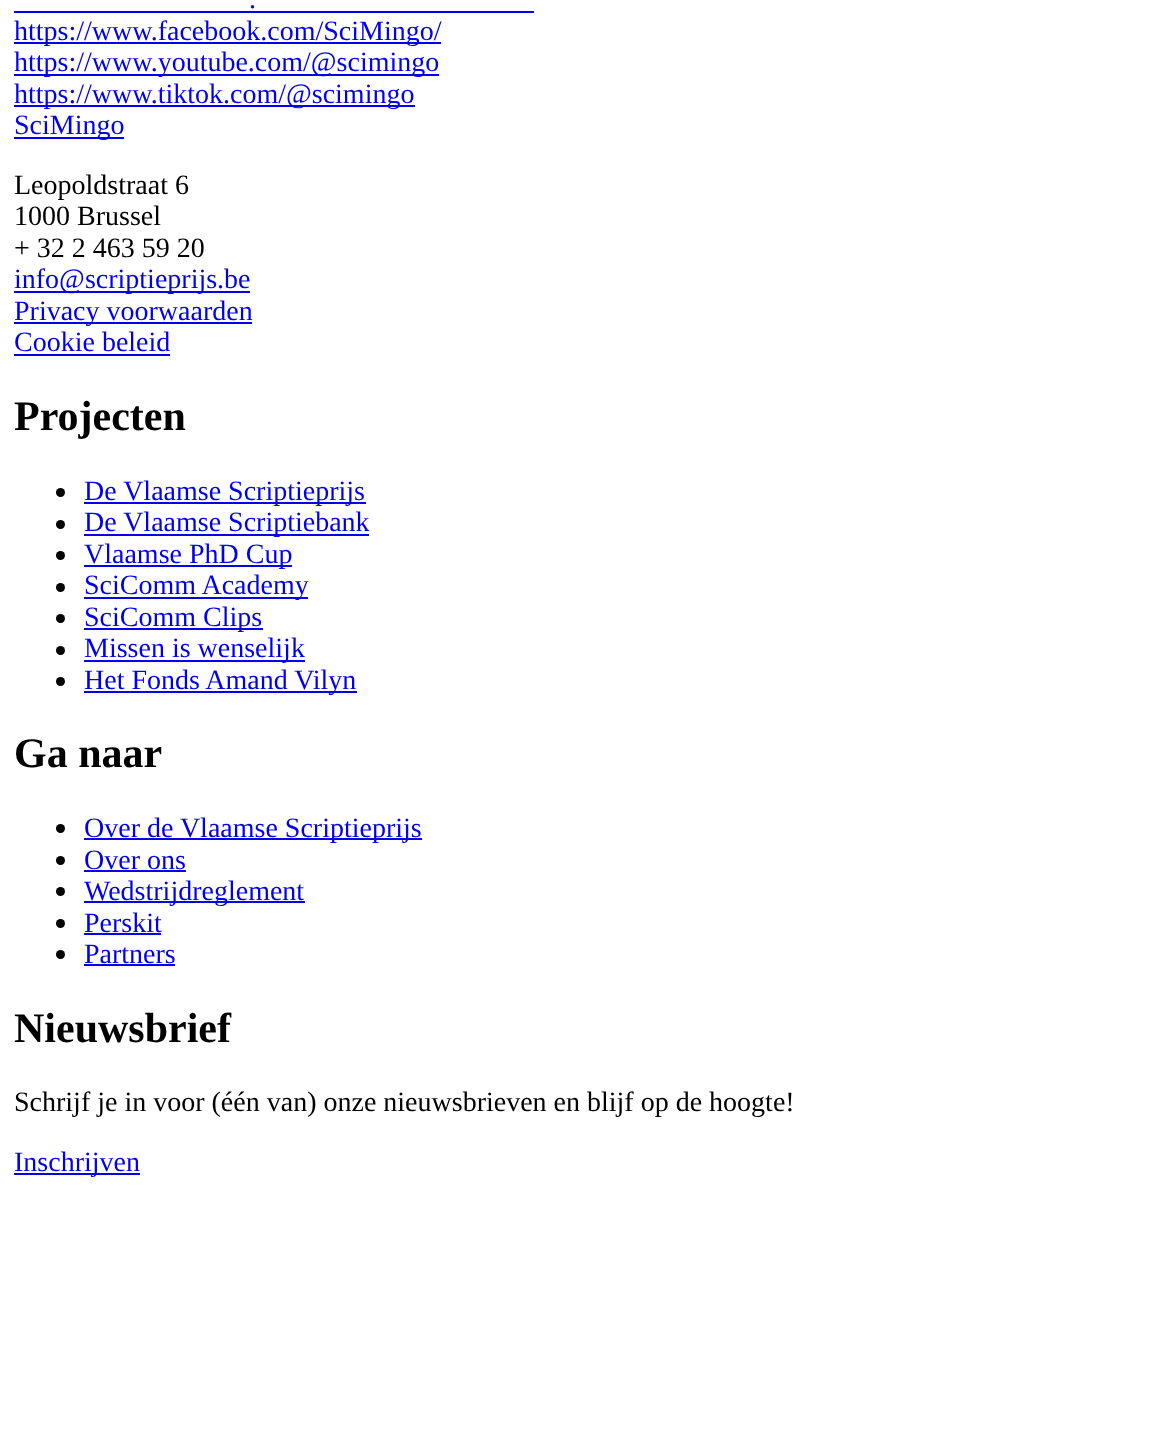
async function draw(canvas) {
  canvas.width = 1172;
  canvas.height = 1430;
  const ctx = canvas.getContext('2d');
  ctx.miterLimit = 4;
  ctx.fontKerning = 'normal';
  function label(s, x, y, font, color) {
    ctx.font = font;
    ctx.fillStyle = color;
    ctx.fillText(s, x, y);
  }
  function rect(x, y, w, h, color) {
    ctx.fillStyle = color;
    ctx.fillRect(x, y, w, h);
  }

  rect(0, 0, 1172, 1430, '#fff');
  label('.', 249, 8, '28px Liberation Serif', '#00e');
  rect(14, 11, 520, 2, '#00e');
  rect(14, 42, 427, 2, '#00e');
  label('https://www.facebook.com/SciMingo/', 14, 40, '28px Liberation Serif', '#00e');
  rect(14, 74, 425, 2, '#00e');
  label('https://www.youtube.com/@scimingo', 14, 71, '28px Liberation Serif', '#00e');
  rect(14, 105, 401, 2, '#00e');
  label('https://www.tiktok.com/@scimingo', 14, 103, '28px Liberation Serif', '#00e');
  rect(14, 137, 110, 2, '#00e');
  label('SciMingo', 14, 134, '28px Liberation Serif', '#00e');
  label('Leopoldstraat 6', 14, 194, '28px Liberation Serif', '#000');
  label('1000 Brussel', 14, 225, '28px Liberation Serif', '#000');
  label('+ 32 2 463 59 20', 14, 257, '28px Liberation Serif', '#000');
  rect(14, 291, 236, 2, '#00e');
  label('info@scriptieprijs.be', 14, 288, '28px Liberation Serif', '#00e');
  rect(14, 322, 238, 2, '#00e');
  label('Privacy voorwaarden', 14, 320, '28px Liberation Serif', '#00e');
  label('Cookie beleid', 14, 351, '28px Liberation Serif', '#00e');
  rect(14, 354, 156, 2, '#00e');
  label('Projecten', 14, 430, 'bold 42px Liberation Serif', '#000');
  ctx.beginPath();
  ctx.arc(60.5, 492.5, 4.5, 0, 2 * Math.PI);
  ctx.fill();
  rect(84, 502, 282, 2, '#00e');
  label('De Vlaamse Scriptieprijs', 84, 500, '28px Liberation Serif', '#00e');
  ctx.fillStyle = '#000';
  ctx.beginPath();
  ctx.arc(60.5, 524.5, 4.5, 0, 2 * Math.PI);
  ctx.fill();
  rect(84, 534, 285, 2, '#00e');
  label('De Vlaamse Scriptiebank', 84, 531, '28px Liberation Serif', '#00e');
  ctx.fillStyle = '#000';
  ctx.beginPath();
  ctx.arc(60.5, 555.5, 4.5, 0, 2 * Math.PI);
  ctx.fill();
  rect(84, 565, 208, 2, '#00e');
  label('Vlaamse PhD Cup', 84, 563, '28px Liberation Serif', '#00e');
  ctx.fillStyle = '#000';
  ctx.beginPath();
  ctx.arc(60.5, 587.5, 4.5, 0, 2 * Math.PI);
  ctx.fill();
  rect(84, 597, 224, 2, '#00e');
  label('SciComm Academy', 84, 594, '28px Liberation Serif', '#00e');
  ctx.fillStyle = '#000';
  ctx.beginPath();
  ctx.arc(60.5, 618.5, 4.5, 0, 2 * Math.PI);
  ctx.fill();
  rect(84, 628, 179, 2, '#00e');
  label('SciComm Clips', 84, 626, '28px Liberation Serif', '#00e');
  ctx.fillStyle = '#000';
  ctx.beginPath();
  ctx.arc(60.5, 650.5, 4.5, 0, 2 * Math.PI);
  ctx.fill();
  rect(84, 660, 221, 2, '#00e');
  label('Missen is wenselijk', 84, 657, '28px Liberation Serif', '#00e');
  ctx.fillStyle = '#000';
  ctx.beginPath();
  ctx.arc(60.5, 681.5, 4.5, 0, 2 * Math.PI);
  ctx.fill();
  rect(84, 691, 273, 2, '#00e');
  label('Het Fonds Amand Vilyn', 84, 689, '28px Liberation Serif', '#00e');
  label('Ga naar', 14, 767, 'bold 42px Liberation Serif', '#000');
  ctx.beginPath();
  ctx.arc(60.5, 828.5, 4.5, 0, 2 * Math.PI);
  ctx.fill();
  rect(84, 838, 338, 2, '#00e');
  label('Over de Vlaamse Scriptieprijs', 84, 837, '28px Liberation Serif', '#00e');
  ctx.fillStyle = '#000';
  ctx.beginPath();
  ctx.arc(60.5, 860.5, 4.5, 0, 2 * Math.PI);
  ctx.fill();
  label('Over ons', 84, 869, '28px Liberation Serif', '#00e');
  rect(84, 870, 102, 2, '#00e');
  ctx.fillStyle = '#000';
  ctx.beginPath();
  ctx.arc(60.5, 891.5, 4.5, 0, 2 * Math.PI);
  ctx.fill();
  rect(84, 901, 221, 2, '#00e');
  label('Wedstrijdreglement', 84, 900, '28px Liberation Serif', '#00e');
  ctx.fillStyle = '#000';
  ctx.beginPath();
  ctx.arc(60.5, 923.5, 4.5, 0, 2 * Math.PI);
  ctx.fill();
  label('Perskit', 84, 932, '28px Liberation Serif', '#00e');
  rect(84, 933, 77, 2, '#00e');
  ctx.fillStyle = '#000';
  ctx.beginPath();
  ctx.arc(60.5, 954.5, 4.5, 0, 2 * Math.PI);
  ctx.fill();
  label('Partners', 84, 963, '28px Liberation Serif', '#00e');
  rect(84, 964, 91, 2, '#00e');
  label('Nieuwsbrief', 14, 1042, 'bold 42px Liberation Serif', '#000');
  label('Schrijf je in voor (één van) onze nieuwsbrieven en blijf op de hoogte!', 14, 1111, '28px Liberation Serif', '#000');
  rect(14, 1173, 126, 2, '#00e');
  label('Inschrijven', 14, 1171, '28px Liberation Serif', '#00e');
}

draw(document.querySelector('canvas'));
